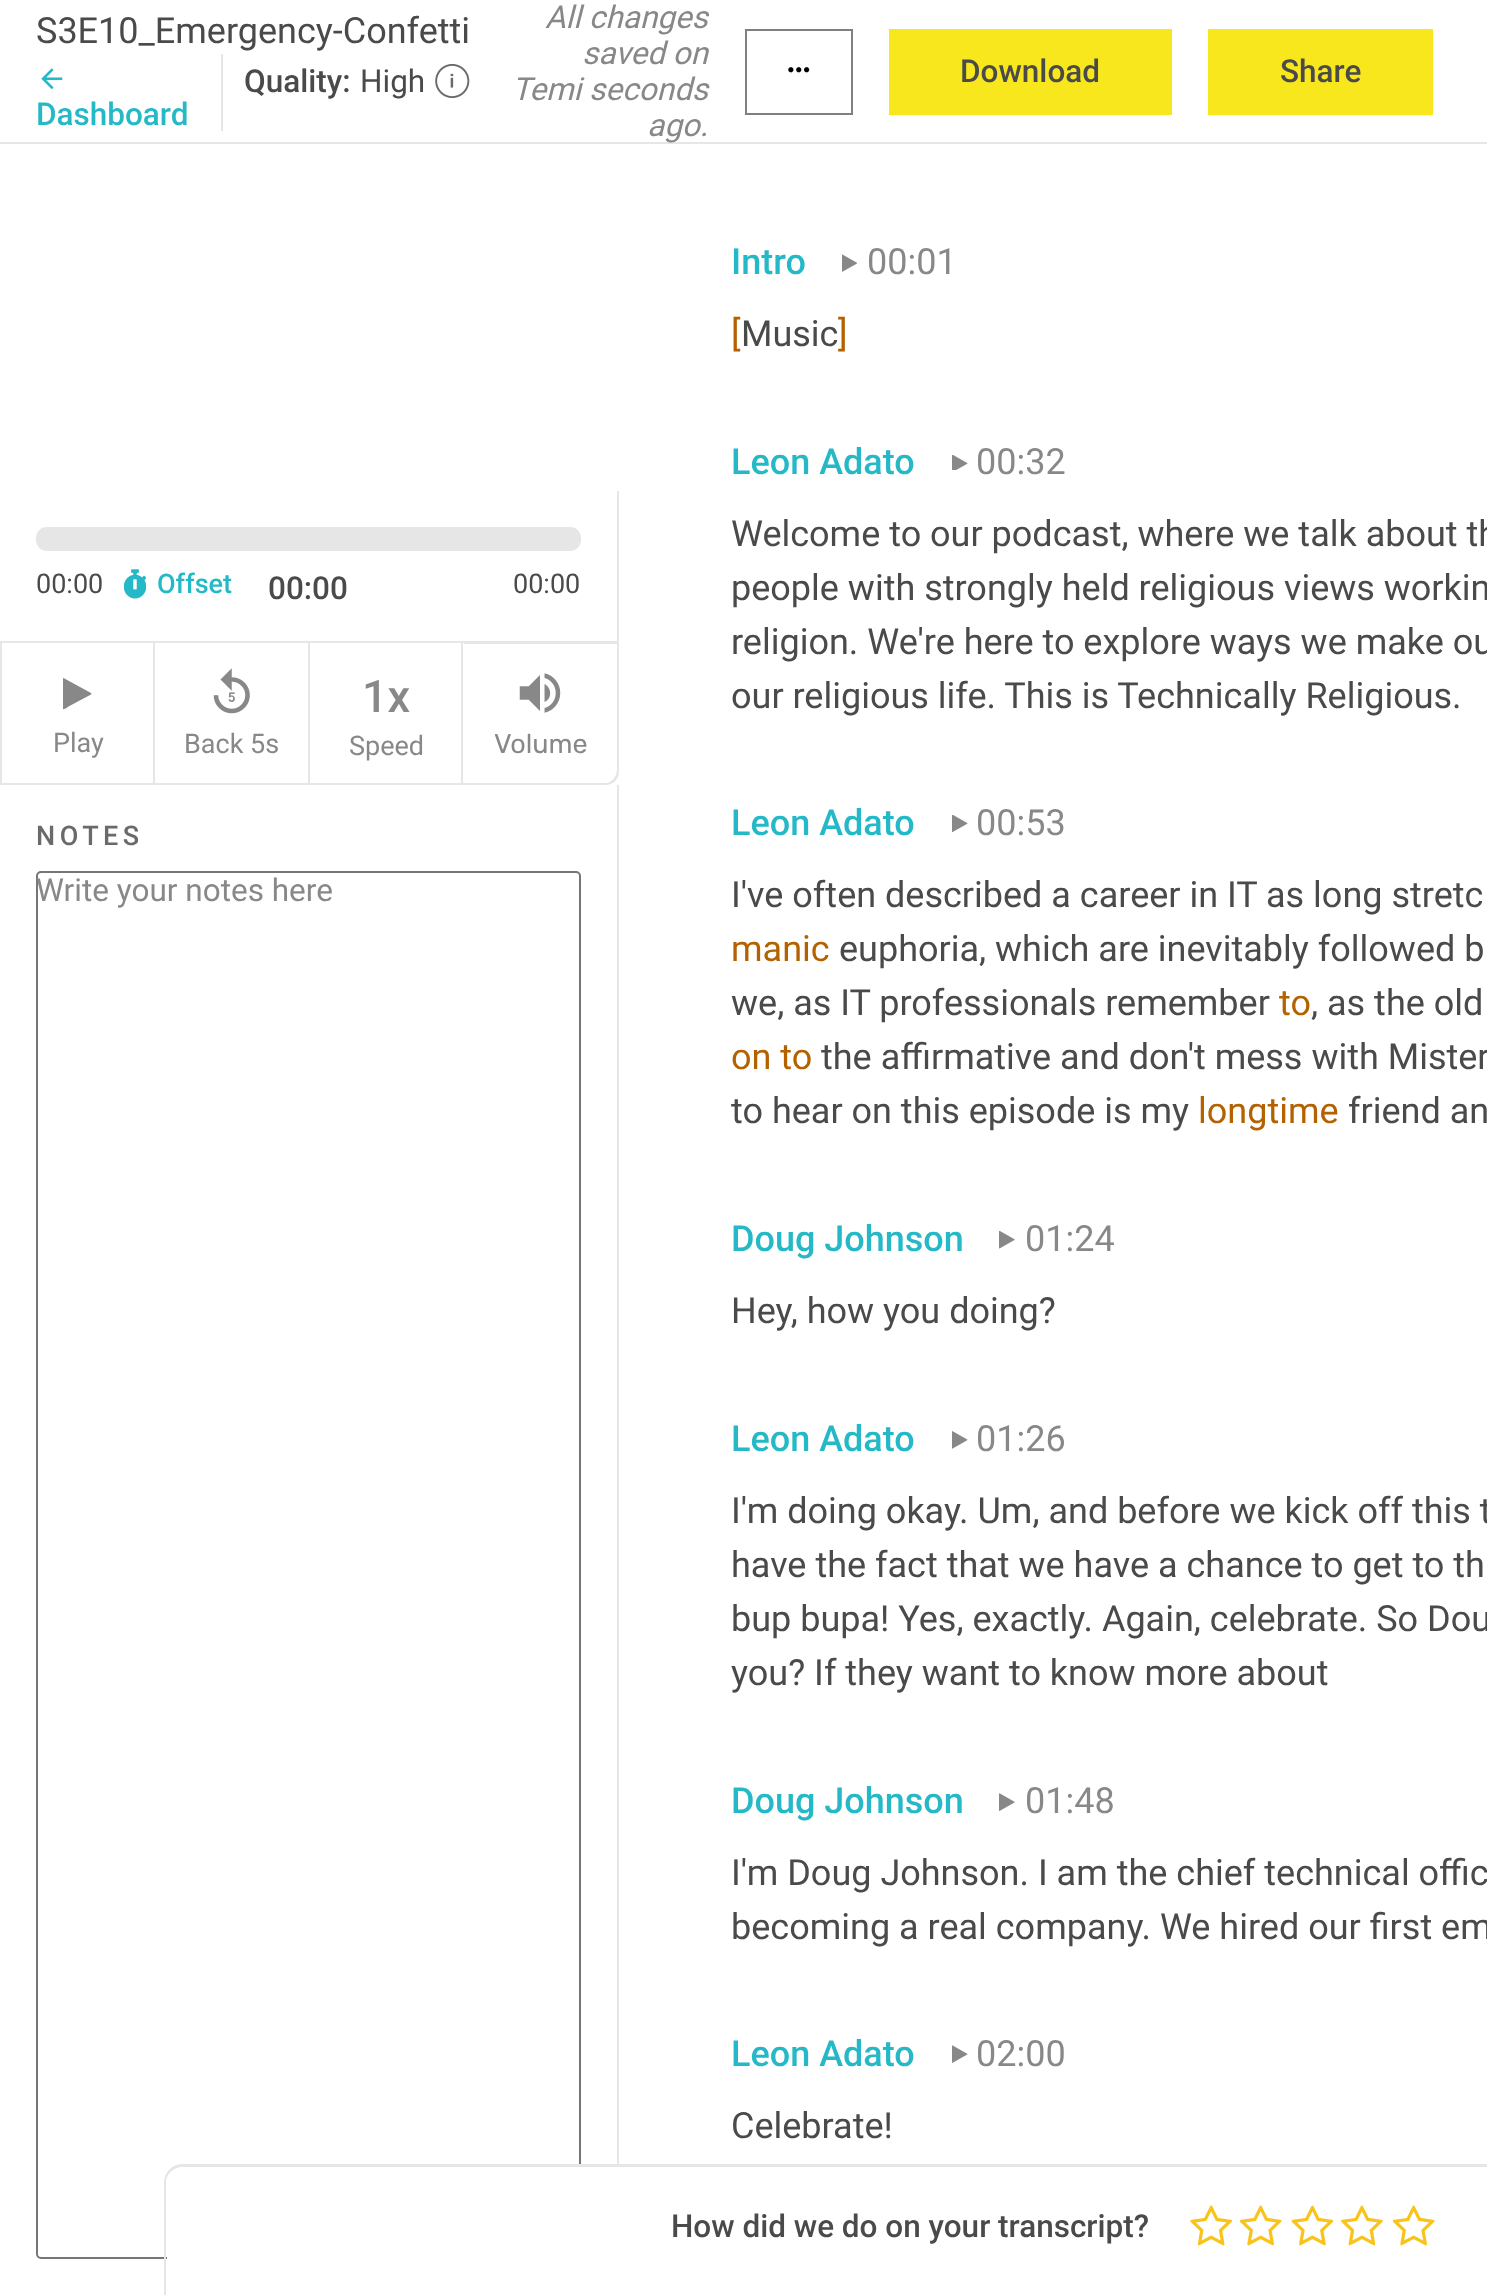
async function draw(canvas) {
  canvas.width = 1487;
  canvas.height = 2295;
  const ctx = canvas.getContext('2d');
  ctx.miterLimit = 4;
  ctx.fontKerning = 'normal';
  function label(s, x, y, font, color) {
    ctx.font = font;
    ctx.fillStyle = color;
    ctx.fillText(s, x, y);
  }
  function rect(x, y, w, h, color) {
    ctx.fillStyle = color;
    ctx.fillRect(x, y, w, h);
  }
  function roundedRect(x, y, w, h, r, color) {
    ctx.fillStyle = color;
    ctx.beginPath();
    ctx.roundRect(x, y, w, h, r);
    ctx.fill();
  }
  async function image(src, x, y, w, h) {
    const img = new Image();
    img.src = src;
    await img.decode();
    ctx.drawImage(img, x, y, w, h);
  }
  let path;

  rect(0, 0, 1487, 2295, '#fff');
  rect(0, 142, 1487, 2, '#e6e6e6');
  label('S3E10_Emergency-Confetti', 36, 43, '36px Roboto', '#4a4a4a');
  rect(221, 54, 2, 77, '#e6e6e6');
  label('Quality:', 244, 92, '500 31.5px Roboto', '#4a4a4a');
  label('High', 360, 92, '31.5px Roboto', '#4a4a4a');
  await image('assets/img1.png', 435, 63, 35, 36);
  await image('assets/img2.png', 41, 68, 22, 22);
  label('Dashboard', 36, 125, '500 31.5px Roboto', '#25b9c8');
  label('All changes', 545, 28, 'italic 31.5px Roboto', '#888');
  label('saved on', 582, 64, 'italic 31.5px Roboto', '#888');
  label('Temi seconds', 512, 100, 'italic 31.5px Roboto', '#888');
  label('ago.', 647, 136, 'italic 31.5px Roboto', '#888');
  ctx.strokeStyle = '#808080';
  ctx.lineWidth = 2;
  ctx.strokeRect(746, 30, 106, 84);
  await image('assets/img3.png', 788, 67, 22, 6);
  rect(889, 29, 283, 86, '#f8e71c');
  label('Download', 960, 82, '500 31.5px Roboto', '#4a4a4a');
  rect(1208, 29, 225, 86, '#f8e71c');
  label('Share', 1280, 82, '500 31.5px Roboto', '#4a4a4a');
  rect(617, 491, 2, 150, '#e6e6e6');
  roundedRect(36, 527, 545, 24, 11, '#e6e6e6');
  label('00:00', 36, 593, '27px Roboto', '#4a4a4a');
  await image('assets/img4.png', 124, 569, 22, 30);
  label('Offset', 157, 593, '500 27px Roboto', '#25b9c8');
  label('00:00', 268, 599, '500 31.5px Roboto', '#4a4a4a');
  label('00:00', 513, 593, '27px Roboto', '#4a4a4a');
  ctx.strokeStyle = '#e6e6e6';
  ctx.strokeRect(1, 642, 153, 142);
  ctx.fillStyle = '#888';
  path = new Path2D('M91 694.5L68.5 706.5C68 707 64 710 63 709V678.5L63.5 678L91 693L91.5 693.5Z');
  ctx.fill(path);
  label('Play', 53, 752, '27px Roboto', '#888');
  rect(155, 641, 309, 2, '#e6e6e6');
  rect(308, 641, 2, 144, '#e6e6e6');
  rect(155, 783, 156, 2, '#e6e6e6');
  await image('assets/img5.png', 213, 668, 37, 46);
  label('Back 5s', 184, 753, '27px Roboto', '#888');
  rect(461, 641, 2, 144, '#e6e6e6');
  rect(311, 783, 153, 2, '#e6e6e6');
  label('1x', 362, 712, '500 45px Roboto', '#888');
  label('Speed', 349, 755, '27px Roboto', '#888');
  ctx.fillStyle = '#e6e6e6';
  path = new Path2D('M464 641H619V772C619 779 613 785 605 785H464ZM464 644H616V772C616 778 611 783 605 783H464Z');
  ctx.fill(path, 'evenodd');
  ctx.fillStyle = '#fff';
  ctx.beginPath();
  ctx.roundRect(464, 644, 153, 139, [0, 0, 14, 0]);
  ctx.fill();
  await image('assets/img6.png', 519, 673, 42, 40);
  label('Volume', 494, 753, '27px Rubik', '#888');
  rect(617, 785, 2, 1379, '#e6e6e6');
  ctx.letterSpacing = '4.5px';
  label('NOTES', 36, 845, '500 27px Roboto', '#6a6a6a');
  ctx.beginPath();
  ctx.roundRect(37, 872, 543, 1386, 4);
  ctx.strokeStyle = '#767676';
  ctx.stroke();
  ctx.letterSpacing = '0px';
  label('Write your notes here', 36, 901, '31.5px Roboto', '#888');
  label('Intro', 731, 274, '500 36px Roboto', '#25b9c8');
  await image('assets/img7.png', 842, 254, 15, 18);
  label('00:01', 867, 274, '36px Roboto', '#888');
  label('[', 731, 346, '36px Roboto', '#b46100');
  label('Music', 741, 346, '36px Roboto', '#4a4a4a');
  label(']', 838, 346, '36px Roboto', '#b46100');
  label('Leon Adato', 731, 474, '500 36px Roboto', '#25b9c8');
  await image('assets/img8.png', 952, 455, 16, 15);
  label('00:32', 976, 474, '36px Roboto', '#888');
  label('Welcome to our podcast, where we talk about th', 731, 546, '36px Roboto', '#4a4a4a');
  label('people with strongly held religious views workin', 731, 600, '36px Roboto', '#4a4a4a');
  label('religion. We\'re here to explore ways we make ou', 731, 654, '36px Roboto', '#4a4a4a');
  label('our religious life. This is Technically Religious.', 731, 708, '36px Roboto', '#4a4a4a');
  label('Leon Adato', 731, 835, '500 36px Roboto', '#25b9c8');
  await image('assets/img9.png', 952, 815, 16, 18);
  label('00:53', 976, 835, '36px Roboto', '#888');
  label('I\'ve often described a career in IT as long stretc', 731, 907, '36px Roboto', '#4a4a4a');
  label('manic', 731, 961, '36px Roboto', '#b46100');
  label('euphoria, which are inevitably followed b', 839, 961, '36px Roboto', '#4a4a4a');
  label('we, as IT professionals remember', 731, 1015, '36px Roboto', '#4a4a4a');
  label('to', 1279, 1015, '36px Roboto', '#b46100');
  label(', as the old', 1311, 1015, '36px Roboto', '#4a4a4a');
  label('on to', 731, 1069, '36px Roboto', '#b46100');
  label('the affirmative and don\'t mess with Mister', 821, 1069, '36px Roboto', '#4a4a4a');
  label('to hear on this episode is my', 731, 1123, '36px Roboto', '#4a4a4a');
  label('longtime', 1198, 1123, '36px Roboto', '#b46100');
  label('friend an', 1348, 1123, '36px Roboto', '#4a4a4a');
  label('Doug Johnson', 731, 1251, '500 36px Roboto', '#25b9c8');
  await image('assets/img10.png', 999, 1231, 16, 18);
  label('01:24', 1025, 1251, '36px Roboto', '#888');
  label('Hey, how you doing?', 731, 1323, '36px Roboto', '#4a4a4a');
  label('Leon Adato', 731, 1451, '500 36px Roboto', '#25b9c8');
  await image('assets/img11.png', 952, 1431, 16, 18);
  label('01:26', 976, 1451, '36px Roboto', '#888');
  label('I\'m doing okay. Um, and before we kick off this t', 731, 1523, '36px Roboto', '#4a4a4a');
  label('have the fact that we have a chance to get to th', 731, 1577, '36px Roboto', '#4a4a4a');
  label('bup bupa! Yes, exactly. Again, celebrate. So Dou', 731, 1631, '36px Roboto', '#4a4a4a');
  label('you? If they want to know more about', 731, 1685, '36px Roboto', '#4a4a4a');
  label('Doug Johnson', 731, 1813, '500 36px Roboto', '#25b9c8');
  await image('assets/img12.png', 999, 1793, 16, 18);
  label('01:48', 1025, 1813, '36px Roboto', '#888');
  label('I\'m Doug Johnson. I am the chief technical offic', 731, 1885, '36px Roboto', '#4a4a4a');
  label('becoming a real company. We hired our first em', 731, 1939, '36px Roboto', '#4a4a4a');
  label('Leon Adato', 731, 2066, '500 36px Roboto', '#25b9c8');
  await image('assets/img13.png', 952, 2045, 16, 18);
  label('02:00', 976, 2066, '36px Roboto', '#888');
  label('Celebrate!', 731, 2138, '36px Roboto', '#4a4a4a');
  ctx.fillStyle = '#fff';
  path = new Path2D('M183 2167H1487C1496 2167 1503 2174 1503 2183V2295H167V2183C167 2174 174 2167 183 2167Z');
  ctx.fill(path);
  ctx.fillStyle = '#e6e6e6';
  path = new Path2D('M182 2164H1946C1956 2164 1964 2173 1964 2182V2295H164V2182C164 2173 172 2164 182 2164ZM182 2167H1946C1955 2167 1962 2174 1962 2182V2295H166V2182C166 2174 174 2167 182 2167Z');
  ctx.fill(path, 'evenodd');
  label('How did we do on your transcript?', 671, 2237, '500 31.5px Roboto', '#4a4a4a');
  await image('assets/img14.png', 1190, 2205, 42, 41);
  await image('assets/img15.png', 1239, 2205, 43, 41);
  await image('assets/img16.png', 1291, 2205, 43, 41);
  await image('assets/img17.png', 1341, 2205, 42, 41);
  await image('assets/img15.png', 1392, 2205, 43, 41);
}

draw(document.querySelector('canvas'));
